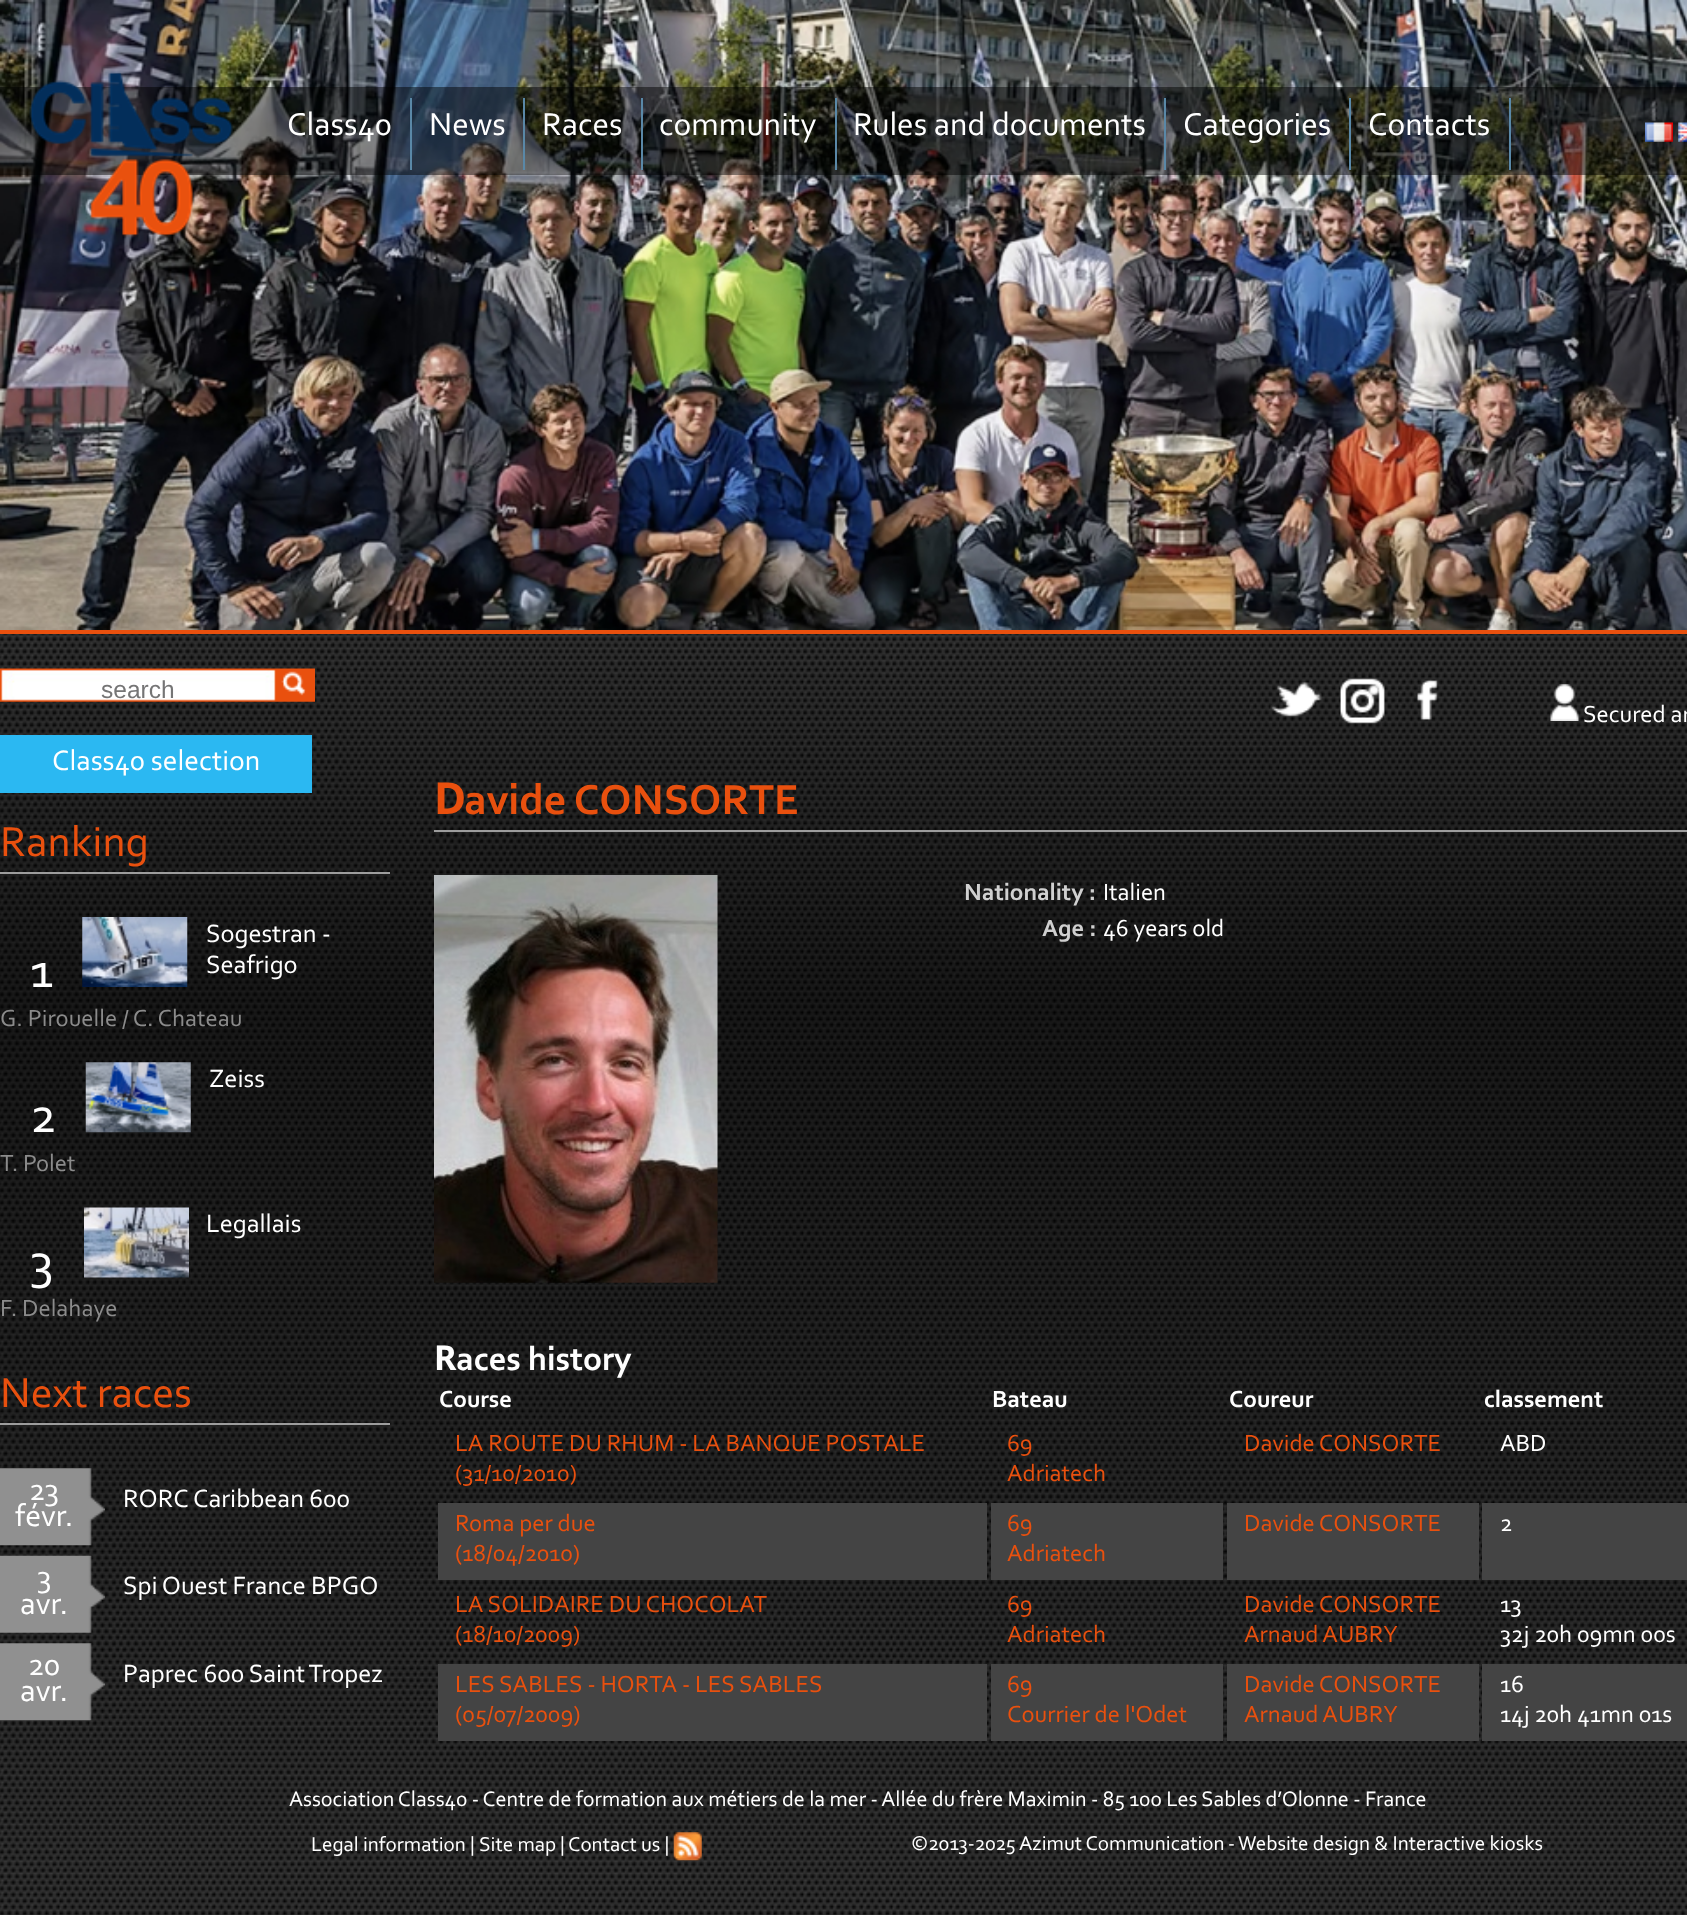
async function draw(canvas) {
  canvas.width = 1687;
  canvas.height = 1915;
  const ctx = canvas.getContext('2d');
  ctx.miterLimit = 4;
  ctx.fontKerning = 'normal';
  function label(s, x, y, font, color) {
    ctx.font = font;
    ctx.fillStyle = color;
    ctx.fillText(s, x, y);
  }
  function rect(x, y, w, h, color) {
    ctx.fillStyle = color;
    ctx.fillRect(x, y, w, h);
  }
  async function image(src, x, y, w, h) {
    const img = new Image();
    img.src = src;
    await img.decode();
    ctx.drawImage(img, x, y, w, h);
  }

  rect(0, 0, 1687, 1915, '#fff');
  await image('assets/img1.png', 0, 634, 1687, 1281);
  rect(0, 630, 1687, 4, '#e9500e');
  await image('assets/img2.png', 0, 0, 1687, 630);
  rect(0, 87, 1687, 88, '#00000078');
  await image('assets/img3.png', 29, 71, 204, 166);
  rect(410, 98, 2, 72, '#5a88a7');
  label('Class40', 287, 135, '33.25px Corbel', '#fff');
  rect(523, 98, 2, 72, '#5a88a7');
  label('News', 429, 135, '33.25px Corbel', '#fff');
  rect(641, 98, 2, 72, '#5a88a7');
  label('Races', 542, 135, '33.25px Corbel', '#fff');
  rect(835, 98, 2, 72, '#5a88a7');
  label('community', 659, 135, '33.25px Corbel', '#fff');
  rect(1164, 98, 2, 72, '#5a88a7');
  label('Rules and documents', 853, 135, '33.25px Corbel', '#fff');
  rect(1349, 98, 2, 72, '#5a88a7');
  label('Categories', 1183, 135, '33.25px Corbel', '#fff');
  rect(1509, 98, 2, 72, '#5a88a7');
  label('Contacts', 1368, 135, '33.25px Corbel', '#fff');
  await image('assets/img4.png', 1645, 122, 28, 20);
  await image('assets/img5.png', 1678, 122, 9, 20);
  await image('assets/img6.png', 0, 668, 315, 34);
  label('search', 101, 698, '24.5px Liberation Sans', '#757575');
  await image('assets/img7.png', 281, 671, 25, 25);
  rect(0, 735, 312, 58, '#2bb8f2');
  label('Class40 selection', 52, 770, '29.5px Corbel', '#fff');
  rect(0, 872, 390, 2, '#9d9d9d');
  label('Ranking', 0, 856, '44px Corbel', '#e9500e');
  label('1', 30, 987, '52px Corbel', '#fff');
  await image('assets/img8.png', 82, 917, 106, 70);
  label('Sogestran -', 206, 942, '26.25px Corbel', '#fff');
  label('Seafrigo', 206, 973, '26.25px Corbel', '#fff');
  label('G. Pirouelle / C. Chateau', 0, 1026, '24.5px Corbel', '#8b8b8b');
  await image('assets/img9.png', 85, 1062, 106, 71);
  label('Zeiss', 209, 1087, '26.25px Corbel', '#fff');
  label('2', 30, 1132, '52px Corbel', '#fff');
  label('T. Polet', 0, 1171, '24.5px Corbel', '#8b8b8b');
  await image('assets/img10.png', 84, 1207, 105, 71);
  label('Legallais', 206, 1232, '26.25px Corbel', '#fff');
  label('3', 30, 1278, '52px Corbel', '#fff');
  label('F. Delahaye', 0, 1316, '24.5px Corbel', '#8b8b8b');
  rect(0, 1423, 390, 2, '#9d9d9d');
  label('Next races', 0, 1407, '44px Corbel', '#e9500e');
  await image('assets/img11.png', 0, 1468, 105, 78);
  label('23', 29, 1500, '32px Corbel', '#fff');
  label('févr.', 15, 1526, '32px Corbel', '#fff');
  label('RORC Caribbean 600', 123, 1507, '26.25px Corbel', '#fff');
  await image('assets/img12.png', 0, 1555, 105, 78);
  label('3', 37, 1587, '32px Corbel', '#fff');
  label('avr.', 20, 1614, '32px Corbel', '#fff');
  label('Spi Ouest France BPGO', 123, 1594, '26.25px Corbel', '#fff');
  await image('assets/img13.png', 0, 1643, 105, 78);
  label('20', 28, 1675, '32px Corbel', '#fff');
  label('avr.', 20, 1701, '32px Corbel', '#fff');
  label('Paprec 600 Saint Tropez', 123, 1682, '26.25px Corbel', '#fff');
  await image('assets/img14.png', 1270, 682, 52, 35);
  await image('assets/img15.png', 1340, 678, 45, 46);
  await image('assets/img16.png', 1417, 680, 21, 40);
  await image('assets/img17.png', 1550, 684, 29, 37);
  label('Secured ar', 1583, 722, '24.5px Corbel', '#fff');
  rect(434, 830, 1253, 2, '#9d9d9d');
  label('D', 434, 814, 'bold 44px Noto Sans', '#e9500e');
  label('avide CONSORTE', 464, 814, 'bold 44px Corbel', '#e9500e');
  await image('assets/img18.png', 434, 875, 284, 408);
  label('Nationality :', 964, 900, 'bold 24.5px Corbel', '#d0d0d0');
  label('Italien', 1103, 900, '24.5px Corbel', '#fff');
  label('Age :', 1042, 936, 'bold 24.5px Corbel', '#d0d0d0');
  label('46 years old', 1103, 936, '24.5px Corbel', '#fff');
  label('R', 434, 1370, 'bold 34.25px Noto Sans', '#fff');
  label('aces history', 456, 1370, 'bold 34.25px Corbel', '#fff');
  label('Course', 439, 1407, 'bold 24.5px Corbel', '#fff');
  label('Bateau', 992, 1407, 'bold 24.5px Corbel', '#fff');
  label('Coureur', 1229, 1407, 'bold 24.5px Corbel', '#fff');
  label('classement', 1484, 1407, 'bold 24.5px Corbel', '#fff');
  label('LA ROUTE DU RHUM - LA BANQUE POSTALE', 455, 1451, '24.5px Corbel', '#e9500e');
  label('(31/10/2010)', 455, 1481, '24.5px Corbel', '#e9500e');
  label('69', 1007, 1451, '24.5px Corbel', '#e9500e');
  label('Adriatech', 1007, 1481, '24.5px Corbel', '#e9500e');
  label('Davide CONSORTE', 1244, 1451, '24.5px Corbel', '#e9500e');
  label('ABD', 1500, 1451, '24.5px Corbel', '#fff');
  rect(438, 1503, 549, 77, '#444');
  label('Roma per due', 455, 1531, '24.5px Corbel', '#e9500e');
  label('(18/04/2010)', 455, 1561, '24.5px Corbel', '#e9500e');
  rect(991, 1503, 232, 77, '#444');
  label('69', 1007, 1531, '24.5px Corbel', '#e9500e');
  label('Adriatech', 1007, 1561, '24.5px Corbel', '#e9500e');
  rect(1227, 1503, 252, 77, '#444');
  label('Davide CONSORTE', 1244, 1531, '24.5px Corbel', '#e9500e');
  rect(1482, 1503, 205, 77, '#444');
  label('2', 1500, 1531, '24.5px Corbel', '#fff');
  label('LA SOLIDAIRE DU CHOCOLAT', 455, 1612, '24.5px Corbel', '#e9500e');
  label('(18/10/2009)', 455, 1642, '24.5px Corbel', '#e9500e');
  label('69', 1007, 1612, '24.5px Corbel', '#e9500e');
  label('Adriatech', 1007, 1642, '24.5px Corbel', '#e9500e');
  label('Davide CONSORTE', 1244, 1612, '24.5px Corbel', '#e9500e');
  label('Arnaud AUBRY', 1244, 1642, '24.5px Corbel', '#e9500e');
  label('13', 1500, 1612, '24.5px Corbel', '#fff');
  label('32j 20h 09mn 00s', 1500, 1642, '24.5px Corbel', '#fff');
  rect(438, 1664, 549, 77, '#444');
  label('LES SABLES - HORTA - LES SABLES', 455, 1692, '24.5px Corbel', '#e9500e');
  label('(05/07/2009)', 455, 1722, '24.5px Corbel', '#e9500e');
  rect(991, 1664, 232, 77, '#444');
  label('69', 1007, 1692, '24.5px Corbel', '#e9500e');
  label('Courrier de l\'Odet', 1007, 1722, '24.5px Corbel', '#e9500e');
  rect(1227, 1664, 252, 77, '#444');
  label('Davide CONSORTE', 1244, 1692, '24.5px Corbel', '#e9500e');
  label('Arnaud AUBRY', 1244, 1722, '24.5px Corbel', '#e9500e');
  rect(1482, 1664, 205, 77, '#444');
  label('16', 1500, 1692, '24.5px Corbel', '#fff');
  label('14j 20h 41mn 01s', 1500, 1722, '24.5px Corbel', '#fff');
  label('Association Class40 - Centre de formation aux métiers de la mer - Allée du frère Maximin - 85 100 Les Sables d’Olonne - France', 289, 1806, '22.05px Corbel', '#fff');
  label('Legal information |', 311, 1851, '21px Corbel', '#fff');
  label('Site map', 479, 1851, '21px Corbel', '#fff');
  label('|', 560, 1851, '21px Corbel', '#fff');
  label('Contact us |', 568, 1851, '21px Corbel', '#fff');
  await image('assets/img19.png', 673, 1832, 29, 29);
  label('©2013-2025', 911, 1850, '21px Corbel', '#fff');
  label('Azimut Communication', 1019, 1850, '21px Corbel', '#fff');
  label('-', 1228, 1850, '21px Corbel', '#fff');
  label('Website design & Interactive kiosks', 1238, 1850, '21px Corbel', '#fff');
}

draw(document.querySelector('canvas'));
